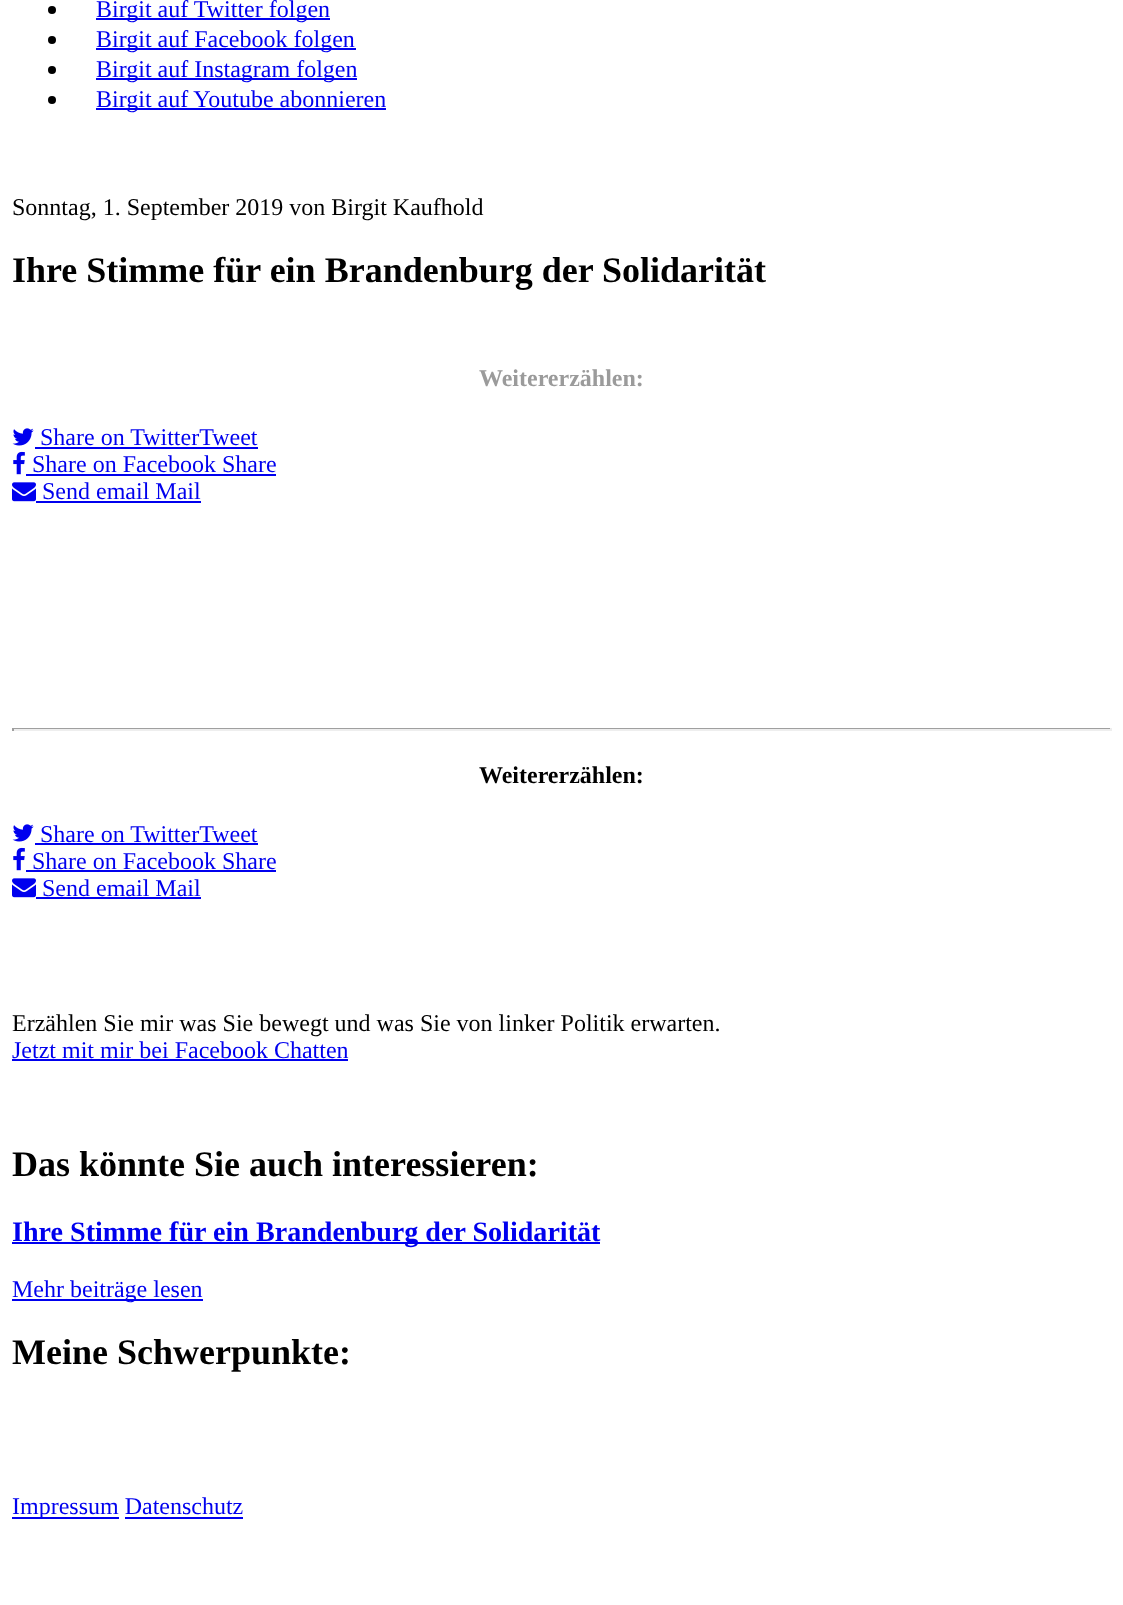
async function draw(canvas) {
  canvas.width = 1123;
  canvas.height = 1605;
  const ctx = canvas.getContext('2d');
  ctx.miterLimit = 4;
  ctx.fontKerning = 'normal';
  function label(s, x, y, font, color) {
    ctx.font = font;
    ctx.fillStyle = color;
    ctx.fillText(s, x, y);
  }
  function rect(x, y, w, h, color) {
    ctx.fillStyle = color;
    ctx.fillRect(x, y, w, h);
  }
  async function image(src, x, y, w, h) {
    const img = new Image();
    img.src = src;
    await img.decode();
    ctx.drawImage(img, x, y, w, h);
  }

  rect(0, 0, 1123, 1605, '#fff');
  ctx.fillStyle = '#000';
  ctx.beginPath();
  ctx.arc(52, 10, 4, 0, 2 * Math.PI);
  ctx.fill();
  rect(96, 18, 234, 2, '#00e');
  label('Birgit auf Twitter folgen', 96, 17, '24px Liberation Serif', '#00e');
  ctx.fillStyle = '#000';
  ctx.beginPath();
  ctx.arc(52, 40, 4, 0, 2 * Math.PI);
  ctx.fill();
  rect(96, 48, 260, 2, '#00e');
  label('Birgit auf Facebook folgen', 96, 47, '24px Liberation Serif', '#00e');
  ctx.fillStyle = '#000';
  ctx.beginPath();
  ctx.arc(52, 70, 4, 0, 2 * Math.PI);
  ctx.fill();
  rect(96, 78, 261, 2, '#00e');
  label('Birgit auf Instagram folgen', 96, 77, '24px Liberation Serif', '#00e');
  ctx.fillStyle = '#000';
  ctx.beginPath();
  ctx.arc(52, 100, 4, 0, 2 * Math.PI);
  ctx.fill();
  rect(96, 108, 290, 2, '#00e');
  label('Birgit auf Youtube abonnieren', 96, 107, '24px Liberation Serif', '#00e');
  label('Sonntag, 1. September 2019 von Birgit Kaufhold', 12, 215, '24px Liberation Serif', '#000');
  label('Ihre Stimme für ein Brandenburg der Solidarität', 12, 282, 'bold 36px Liberation Serif', '#000');
  label('Weitererzählen:', 479, 386, 'bold 24px Liberation Serif', '#9b9b9b');
  await image('assets/img1.png', 12, 428, 22, 18);
  label('Share on TwitterTweet', 40, 445, '24px Liberation Serif', '#00e');
  rect(35, 447, 223, 2, '#00e');
  await image('assets/img2.png', 13, 451, 12, 24);
  label('Share on Facebook Share', 32, 472, '24px Liberation Serif', '#00e');
  rect(26, 474, 250, 2, '#00e');
  await image('assets/img3.png', 12, 482, 24, 20);
  label('Send email Mail', 42, 499, '24px Liberation Serif', '#00e');
  rect(36, 501, 165, 2, '#00e');
  rect(12, 728, 1100, 1, '#9f9f9f');
  rect(1110, 728, 2, 3, '#eee');
  rect(12, 729, 1100, 2, '#eee');
  rect(12, 728, 2, 3, '#9f9f9f');
  label('Weitererzählen:', 479, 783, 'bold 24px Liberation Serif', '#000');
  await image('assets/img1.png', 12, 824, 22, 18);
  label('Share on TwitterTweet', 40, 842, '24px Liberation Serif', '#00e');
  rect(35, 843, 223, 2, '#00e');
  await image('assets/img2.png', 13, 847, 12, 24);
  label('Share on Facebook Share', 32, 869, '24px Liberation Serif', '#00e');
  rect(26, 870, 250, 2, '#00e');
  await image('assets/img3.png', 12, 878, 24, 20);
  label('Send email Mail', 42, 896, '24px Liberation Serif', '#00e');
  rect(36, 897, 165, 2, '#00e');
  label('Erzählen Sie mir was Sie bewegt und was Sie von linker Politik erwarten.', 12, 1031, '24px Liberation Serif', '#000');
  label('Jetzt mit mir bei Facebook Chatten', 12, 1058, '24px Liberation Serif', '#00e');
  rect(12, 1059, 336, 2, '#00e');
  label('Das könnte Sie auch interessieren:', 12, 1176, 'bold 36px Liberation Serif', '#000');
  rect(12, 1242, 588, 2, '#00e');
  label('Ihre Stimme für ein Brandenburg der Solidarität', 12, 1241, 'bold 28.1px Liberation Serif', '#00e');
  rect(12, 1299, 191, 2, '#00e');
  label('Mehr beiträge lesen', 12, 1297, '24px Liberation Serif', '#00e');
  label('Meine Schwerpunkte:', 12, 1364, 'bold 36px Liberation Serif', '#000');
  rect(12, 1517, 107, 2, '#00e');
  label('Impressum Datenschutz', 12, 1514, '24px Liberation Serif', '#00e');
  rect(125, 1517, 118, 2, '#00e');
}

draw(document.querySelector('canvas'));
